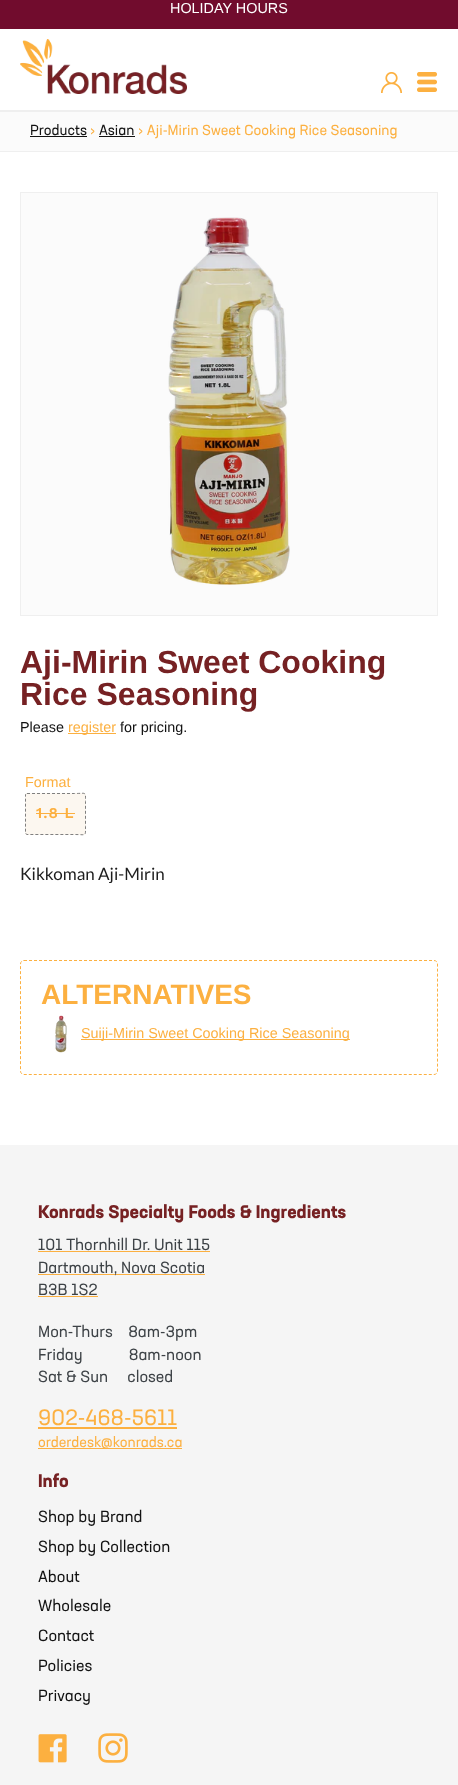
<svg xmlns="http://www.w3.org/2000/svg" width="458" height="1785">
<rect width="100%" height="100%" fill="#fff"/>
<rect width="458" height="29" fill="#710c2d"/>
<text x="170" y="13" style="font-family:Liberation Sans;font-size:14.4px;fill:#fff">HOLIDAY HOURS</text>
<rect y="110" width="458" height="2" fill="#efefef"/>
<image x="20" y="39" width="167" height="55" href="media/1.png"/>
<image x="381" y="72" width="21" height="21" href="media/2.png"/>
<image x="417" y="72" width="20" height="20" href="media/3.png"/>
<rect y="112" width="458" height="39" fill="#fbfbfb"/>
<rect y="151" width="458" height="1" fill="#efefef"/>
<text x="30" y="135" style="font-family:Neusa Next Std;font-size:14.4px;fill:#121212">Products</text>
<rect x="30" y="136" width="57" height="1" fill="#121212"/>
<text x="90" y="135" style="font-family:Neusa Next Std;font-size:14.4px;fill:#fcb040">›</text>
<text x="99" y="135" style="font-family:Neusa Next Std;font-size:14.4px;fill:#121212">Asian</text>
<rect x="99" y="136" width="36" height="1" fill="#121212"/>
<text x="138" y="135" style="font-family:Neusa Next Std;font-size:14.4px;fill:#fcb040">› Aji-Mirin Sweet Cooking Rice Seasoning</text>
<rect x="20.5" y="192.5" width="417" height="423" fill="#fbfbfb" stroke="#efefef"/>
<image x="168" y="217" width="122" height="368" href="media/4.png"/>
<text x="20" y="673" style="font-family:Liberation Sans;font-size:32px;font-weight:bold;fill:#762123">Aji-Mirin Sweet Cooking</text>
<text x="20" y="705" style="font-family:Liberation Sans;font-size:32px;font-weight:bold;fill:#762123">Rice Seasoning</text>
<text x="20" y="732" style="font-family:Liberation Sans;font-size:14.4px;fill:#121212">Please</text>
<rect x="68" y="733" width="48" height="1" fill="#fcb040"/>
<text x="68" y="732" style="font-family:Liberation Sans;font-size:14.4px;fill:#fcb040">register</text>
<text x="120" y="732" style="font-family:Liberation Sans;font-size:14.4px;fill:#121212">for pricing.</text>
<text x="25" y="787" style="font-family:Liberation Sans;font-size:14.4px;fill:#fcb040">Format</text>
<rect x="25" y="793" width="61" height="42" rx="2" fill="#fcf7f0"/>
<path d="M27 793.5h47.5c12 0 11-2.5 11 8v25c0 10.5 1 8-11 8h-47.5l-1.5-1v-39z" fill="none" stroke="#808080" stroke-dasharray="3 2"/>
<text x="36" y="818" style="font-family:Work Sans;font-size:15px;font-weight:600;letter-spacing:1px;fill:#fcb040">1.8 L</text>
<rect x="36" y="813" width="39" height="1" fill="#fcb040"/>
<text x="20" y="880" style="font-family:Lato;font-size:17px;fill:#1e1e1e">Kikkoman Aji-Mirin</text>
<path d="M24 960.5h410c2 0 3.5 1.5 3.5 3.5v107c0 2-1.5 3.5-3.5 3.5h-410c-2 0-3.5-1.5-3.5-3.5v-107c0-2 1.5-3.5 3.5-3.5z" fill="none" stroke="#fcb040" stroke-dasharray="3 2"/>
<text x="41" y="1004" style="font-family:Liberation Sans;font-size:28px;font-weight:bold;fill:#fcb040">ALTERNATIVES</text>
<image x="55" y="1015" width="12" height="38" href="media/5.png"/>
<rect x="81" y="1039" width="269" height="1" fill="#fcb040"/>
<text x="81" y="1038" style="font-family:Liberation Sans;font-size:14.4px;fill:#fcb040">Suiji-Mirin Sweet Cooking Rice Seasoning</text>
<rect y="1145" width="458" height="640" fill="#f5f5f5"/>
<text x="38" y="1218" style="font-family:Neusa Next Std;font-size:18px;font-weight:bold;fill:#762123">Konrads Specialty Foods &amp; Ingredients</text>
<text x="38" y="1250" style="font-family:Neusa Next Std;font-size:16px;fill:#3d4246">101 Thornhill Dr. Unit 115</text>
<rect x="38" y="1251" width="172" height="1" fill="#fcb040"/>
<rect x="38" y="1274" width="167" height="1" fill="#fcb040"/>
<text x="38" y="1273" style="font-family:Neusa Next Std;font-size:16px;fill:#3d4246">Dartmouth, Nova Scotia</text>
<text x="38" y="1295" style="font-family:Neusa Next Std;font-size:16px;fill:#3d4246">B3B 1S2</text>
<rect x="38" y="1296" width="60" height="1" fill="#fcb040"/>
<text x="38" y="1337" style="font-family:Neusa Next Std;font-size:16px;fill:#3d4246" xml:space="preserve">Mon-Thurs    8am-3pm</text>
<text x="38" y="1360" style="font-family:Neusa Next Std;font-size:16px;fill:#3d4246" xml:space="preserve">Friday            8am-noon</text>
<text x="38" y="1382" style="font-family:Neusa Next Std;font-size:16px;fill:#3d4246" xml:space="preserve">Sat &amp; Sun     closed</text>
<text x="38" y="1425" style="font-family:Neusa Next Std;font-size:22px;fill:#fcb040">902-468-5611</text>
<rect x="38" y="1427" width="139" height="2" fill="#fcb040"/>
<rect x="38" y="1448" width="144" height="1" fill="#fcb040"/>
<text x="38" y="1447" style="font-family:Neusa Next Std;font-size:14.4px;fill:#fcb040">orderdesk@konrads.ca</text>
<text x="38" y="1487" style="font-family:Neusa Next Std;font-size:18px;font-weight:bold;fill:#762123">Info</text>
<text x="38" y="1522" style="font-family:Neusa Next Std;font-size:16px;fill:#121212">Shop by Brand</text>
<text x="38" y="1552" style="font-family:Neusa Next Std;font-size:16px;fill:#121212">Shop by Collection</text>
<text x="38" y="1582" style="font-family:Neusa Next Std;font-size:16px;fill:#121212">About</text>
<text x="38" y="1611" style="font-family:Neusa Next Std;font-size:16px;fill:#121212">Wholesale</text>
<text x="38" y="1641" style="font-family:Neusa Next Std;font-size:16px;fill:#121212">Contact</text>
<text x="38" y="1671" style="font-family:Neusa Next Std;font-size:16px;fill:#121212">Policies</text>
<text x="38" y="1701" style="font-family:Neusa Next Std;font-size:16px;fill:#121212">Privacy</text>
<image x="38" y="1734" width="29" height="29" href="media/6.png"/>
<image x="98" y="1733" width="30" height="30" href="media/7.png"/>
</svg>
